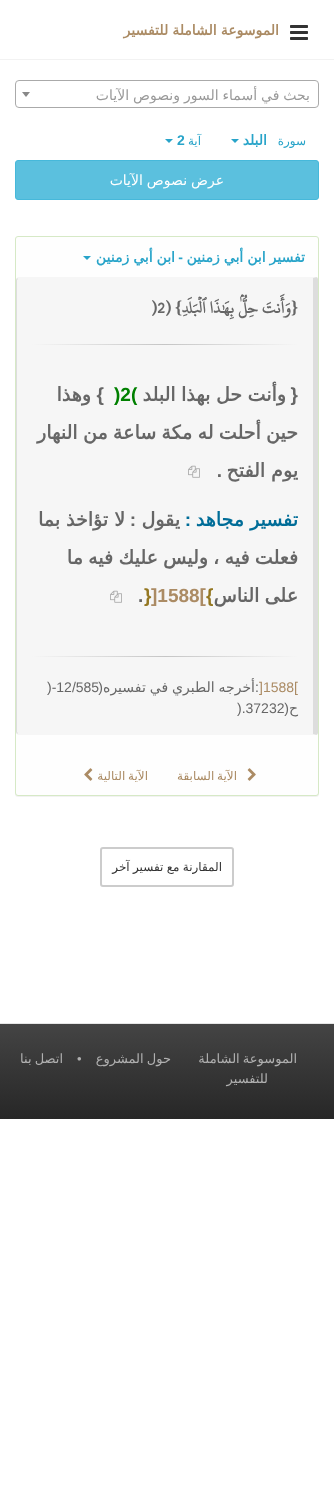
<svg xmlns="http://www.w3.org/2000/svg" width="334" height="1512">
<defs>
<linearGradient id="g1" gradientUnits="userSpaceOnUse" x1="32" y1="345" x2="298" y2="345"><stop offset="0" stop-color="#f6f6f6"/><stop offset="0.5" stop-color="#c5c5c5"/><stop offset="1" stop-color="#f6f6f6"/></linearGradient>
<linearGradient id="g2" gradientUnits="userSpaceOnUse" x1="32" y1="657" x2="298" y2="657"><stop offset="0" stop-color="#f6f6f6"/><stop offset="0.5" stop-color="#c5c5c5"/><stop offset="1" stop-color="#f6f6f6"/></linearGradient>
<linearGradient id="g3" gradientUnits="userSpaceOnUse" x1="167" y1="1024" x2="167" y2="1119"><stop offset="0" stop-color="#444"/><stop offset="1" stop-color="#272727"/></linearGradient>
</defs>
<rect width="100%" height="100%" fill="#fff"/>
<rect y="59" width="334" height="1" fill="#f2f2f2"/>
<image x="290" y="25" width="18" height="15" href="media/1.png"/>
<text x="279" y="35" word-spacing="-0.5" style="font-family:DejaVu Sans;font-size:14px;font-weight:bold;direction:rtl;fill:#ab8b64">الموسوعة الشاملة للتفسير</text>
<rect y="1023" width="334" height="1" fill="#e6e6e6"/>
<rect x="15.5" y="80.5" width="303" height="27" rx="3.5" fill="none" stroke="#aaa"/>
<text x="310" y="100" word-spacing="-0.5" style="font-family:DejaVu Sans;font-size:14px;direction:rtl;fill:#999">بحث في أسماء السور ونصوص الآيات</text>
<path d="M22 92h8l-4 5z" fill="#888"/>
<text x="306" y="145" style="font-family:DejaVu Sans;font-size:12px;direction:rtl;fill:#28a4c9">سورة</text>
<text x="267" y="145" style="font-family:DejaVu Sans;font-size:14px;font-weight:bold;direction:rtl;fill:#28a4c9">البلد</text>
<path d="M231 139h8l-4 4z" fill="#28a4c9"/>
<text x="201" y="145" style="font-family:DejaVu Sans;font-size:12px;direction:rtl;fill:#28a4c9">آية</text>
<text x="177" y="145" style="font-family:Liberation Sans;font-size:14px;font-weight:bold;fill:#28a4c9">2</text>
<path d="M165 139h8l-4 4z" fill="#28a4c9"/>
<rect x="15.5" y="160.5" width="303" height="39" rx="2.5" fill="#5bc0de" stroke="#46b8da"/>
<text x="224" y="185" word-spacing="-0.5" style="font-family:DejaVu Sans;font-size:14px;direction:rtl;fill:#fff">عرض نصوص الآيات</text>
<rect x="15" y="237" width="304" height="560" rx="3" fill="#0000000d" filter="blur(0.5px)"/>
<rect x="15.5" y="236.5" width="303" height="559" rx="2.5" fill="#fefefe" stroke="#d6e9c6"/>
<text x="305" y="262" word-spacing="-0.5" style="font-family:DejaVu Sans;font-size:14px;font-weight:bold;direction:rtl;fill:#28a4c9">تفسير ابن أبي زمنين</text>
<text x="183" y="262" style="font-family:Liberation Sans;font-size:14px;font-weight:bold;direction:rtl;fill:#28a4c9">-</text>
<text x="175" y="262" word-spacing="-0.5" style="font-family:DejaVu Sans;font-size:14px;font-weight:bold;direction:rtl;fill:#28a4c9">ابن أبي زمنين</text>
<path d="M83 256h8l-4 4z" fill="#28a4c9"/>
<rect x="16" y="277" width="302" height="458" rx="3" fill="#f6f6f6"/>
<path d="M318 732v-452c0-1 0-2-1-3l-4 1v456l4 1c1-1 1-2 1-3z" fill="#0000001a"/>
<path d="M16 280v452l1 2l1-1l-1-1v-452l1-1l-1-1z" fill="#ddd"/>
<text x="298" y="313" style="font-family:Liberation Serif;font-size:18px;font-weight:bold;direction:rtl;fill:#666">{</text>
<text x="291" y="313" style="font-family:'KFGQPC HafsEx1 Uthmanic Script';font-size:18px;font-weight:bold;direction:rtl;fill:#666">وَأَنتَ حِلُّۢ بِهَٰذَا ٱلۡبَلَدِ</text>
<text x="182" y="313" style="font-family:Liberation Serif;font-size:18px;font-weight:bold;direction:rtl;fill:#666">}</text>
<text x="171" y="313" style="font-family:'KFGQPC HafsEx1 Uthmanic Script';font-size:18px;font-weight:bold;direction:rtl;fill:#666">(</text>
<text x="151" y="313" style="font-family:'KFGQPC HafsEx1 Uthmanic Script';font-size:18px;font-weight:bold;fill:#666">)2</text>
<rect x="32" y="344" width="266" height="1" fill="url(#g1)"/>
<text x="298" y="401" style="font-family:Liberation Sans;font-size:19px;font-weight:bold;direction:rtl;fill:#666">{</text>
<text x="286" y="401" word-spacing="-0.5" style="font-family:DejaVu Sans;font-size:19px;font-weight:bold;direction:rtl;fill:#666">وأنت حل بهذا البلد</text>
<text x="114" y="401" style="font-family:Liberation Sans;font-size:19px;font-weight:bold;fill:#008000">)2(</text>
<text x="104" y="401" style="font-family:Liberation Sans;font-size:19px;font-weight:bold;direction:rtl;fill:#666">}</text>
<text x="91" y="401" style="font-family:DejaVu Sans;font-size:19px;font-weight:bold;direction:rtl;fill:#666">وهذا</text>
<text x="298" y="439" word-spacing="-0.75" style="font-family:DejaVu Sans;font-size:19px;font-weight:bold;direction:rtl;fill:#666">حين أحلت له مكة ساعة من النهار</text>
<text x="298" y="477" style="font-family:DejaVu Sans;font-size:19px;font-weight:bold;direction:rtl;fill:#666">يوم الفتح</text>
<text x="222" y="477" style="font-family:Liberation Sans;font-size:19px;font-weight:bold;direction:rtl;fill:#666">.</text>
<image x="188" y="465" width="12" height="13" href="media/2.png"/>
<text x="298" y="526" style="font-family:DejaVu Sans;font-size:19px;font-weight:bold;direction:rtl;fill:#006d98">تفسير مجاهد</text>
<text x="191" y="526" style="font-family:Liberation Sans;font-size:19px;font-weight:bold;direction:rtl;fill:#006d98">:</text>
<text x="180" y="526" style="font-family:DejaVu Sans;font-size:19px;font-weight:bold;direction:rtl;fill:#666">يقول</text>
<text x="136" y="526" style="font-family:Liberation Sans;font-size:19px;font-weight:bold;direction:rtl;fill:#666">:</text>
<text x="125" y="526" style="font-family:DejaVu Sans;font-size:19px;font-weight:bold;direction:rtl;fill:#666">لا تؤاخذ بما</text>
<text x="298" y="564" word-spacing="-0.75" style="font-family:DejaVu Sans;font-size:19px;font-weight:bold;direction:rtl;fill:#666">فعلت فيه ،</text>
<text x="208" y="564" word-spacing="-0.75" style="font-family:DejaVu Sans;font-size:19px;font-weight:bold;direction:rtl;fill:#666">وليس عليك فيه ما</text>
<text x="298" y="602" word-spacing="-0.75" style="font-family:DejaVu Sans;font-size:19px;font-weight:bold;direction:rtl;fill:#666">على الناس</text>
<text x="206" y="602" style="font-family:Liberation Sans;font-size:19px;font-weight:bold;fill:#947721">{</text>
<text x="151" y="602" style="font-family:Liberation Sans;font-size:19px;font-weight:bold;fill:#ab8b64">]1588[</text>
<text x="144" y="602" style="font-family:Liberation Sans;font-size:19px;font-weight:bold;fill:#947721">}</text>
<text x="138" y="602" style="font-family:Liberation Sans;font-size:19px;font-weight:bold;fill:#666">.</text>
<image x="110" y="590" width="12" height="13" href="media/2.png"/>
<rect x="32" y="656" width="266" height="1" fill="url(#g2)"/>
<text x="259" y="692" style="font-family:Liberation Sans;font-size:14px;fill:#ab8b64">]1588[</text>
<text x="255" y="692" word-spacing="-0.5" style="font-family:DejaVu Sans;font-size:14px;direction:rtl;fill:#666">أخرجه الطبري في تفسيره</text>
<text x="103" y="692" style="font-family:Liberation Sans;font-size:14px;direction:rtl;fill:#666">(</text>
<text x="47" y="692" style="font-family:Liberation Sans;font-size:14px;fill:#666">)-12/585</text>
<text x="259" y="692" style="font-family:Liberation Sans;font-size:14px;direction:rtl;fill:#666">:</text>
<text x="298" y="713" style="font-family:DejaVu Sans;font-size:14px;direction:rtl;fill:#666">ح</text>
<text x="289" y="713" style="font-family:Liberation Sans;font-size:14px;direction:rtl;fill:#666">(</text>
<text x="237" y="713" style="font-family:Liberation Sans;font-size:14px;fill:#666">).37232</text>
<image x="247" y="768" width="9" height="13" href="media/3.png"/>
<text x="237" y="780" word-spacing="-1" style="font-family:DejaVu Sans;font-size:12px;direction:rtl;fill:#ab8b64">الآية السابقة</text>
<text x="148" y="780" word-spacing="-1" style="font-family:DejaVu Sans;font-size:12px;direction:rtl;fill:#ab8b64">الآية التالية</text>
<image x="84" y="768" width="9" height="13" href="media/4.png"/>
<rect x="101" y="848" width="132" height="38" rx="2" fill="none" stroke="#ccc" stroke-width="2"/>
<text x="222" y="871" word-spacing="-0.5" style="font-family:DejaVu Sans;font-size:12px;direction:rtl;fill:#333">المقارنة مع تفسير آخر</text>
<rect y="1024" width="334" height="95" fill="url(#g3)"/>
<text x="297" y="1063" word-spacing="-1" style="font-family:DejaVu Sans;font-size:13px;direction:rtl;fill:#b0b0b0">الموسوعة الشاملة</text>
<text x="171" y="1063" word-spacing="-1" style="font-family:DejaVu Sans;font-size:13px;direction:rtl;fill:#b0b0b0">حول المشروع</text>
<text x="77" y="1063" style="font-family:Liberation Sans;font-size:13px;fill:#b0b0b0">•</text>
<text x="63" y="1063" word-spacing="-1" style="font-family:DejaVu Sans;font-size:13px;direction:rtl;fill:#b0b0b0">اتصل بنا</text>
<text x="268" y="1083" style="font-family:DejaVu Sans;font-size:13px;direction:rtl;fill:#b0b0b0">للتفسير</text>
</svg>
